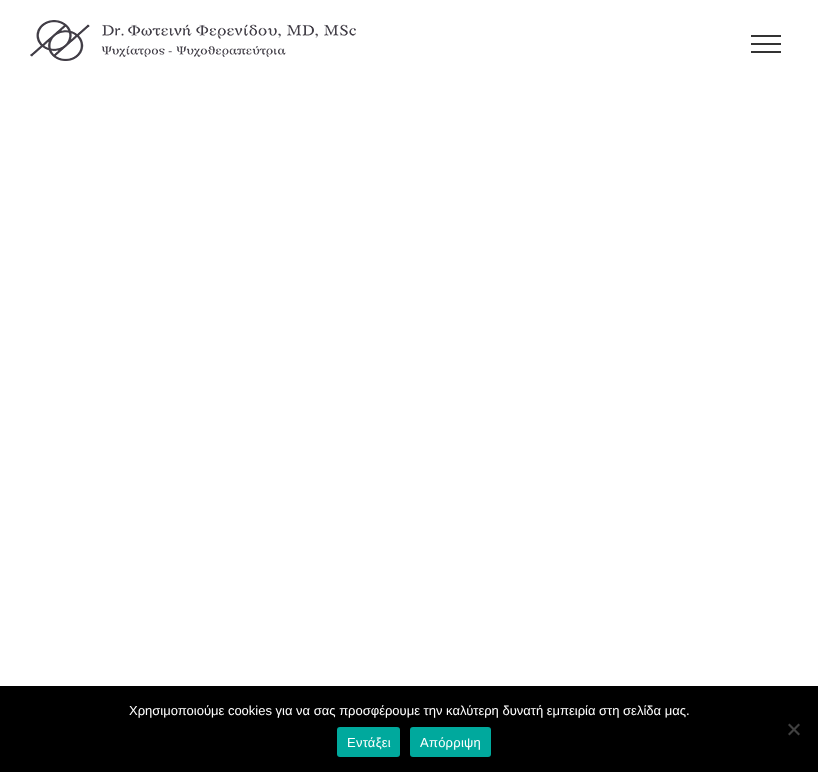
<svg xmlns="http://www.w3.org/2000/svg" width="818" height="772">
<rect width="100%" height="100%" fill="#fff"/>
<image x="30" y="20" width="326" height="41" href="media/1.png"/>
<rect x="751" y="35" width="30" height="2" fill="#333"/>
<rect x="751" y="43" width="30" height="2" fill="#333"/>
<rect x="751" y="51" width="30" height="2" fill="#333"/>
<rect y="686" width="818" height="86" fill="#000"/>
<text x="129" y="715" style="font-family:Liberation Sans;font-size:13px;fill:#fff">Χρησιμοποιούμε cookies για να σας προσφέρουμε την καλύτερη δυνατή εμπειρία στη σελίδα μας.</text>
<path d="M798.5 723.5l1.5 1.5l-10.5 10.5l-1.5-1.5z" fill="#404040"/>
<path d="M788 725l1.5-1.5l10.5 10.5l-1.5 1.5z" fill="#404040"/>
<rect x="337" y="727" width="63" height="30" rx="3" fill="#00a99d"/>
<text x="347" y="747" style="font-family:Liberation Sans;font-size:13px;letter-spacing:0.25px;fill:#fff">Εντάξει</text>
<rect x="410" y="727" width="81" height="30" rx="3" fill="#00a99d"/>
<text x="420" y="747" style="font-family:Liberation Sans;font-size:13px;letter-spacing:0.25px;fill:#fff">Απόρριψη</text>
</svg>
